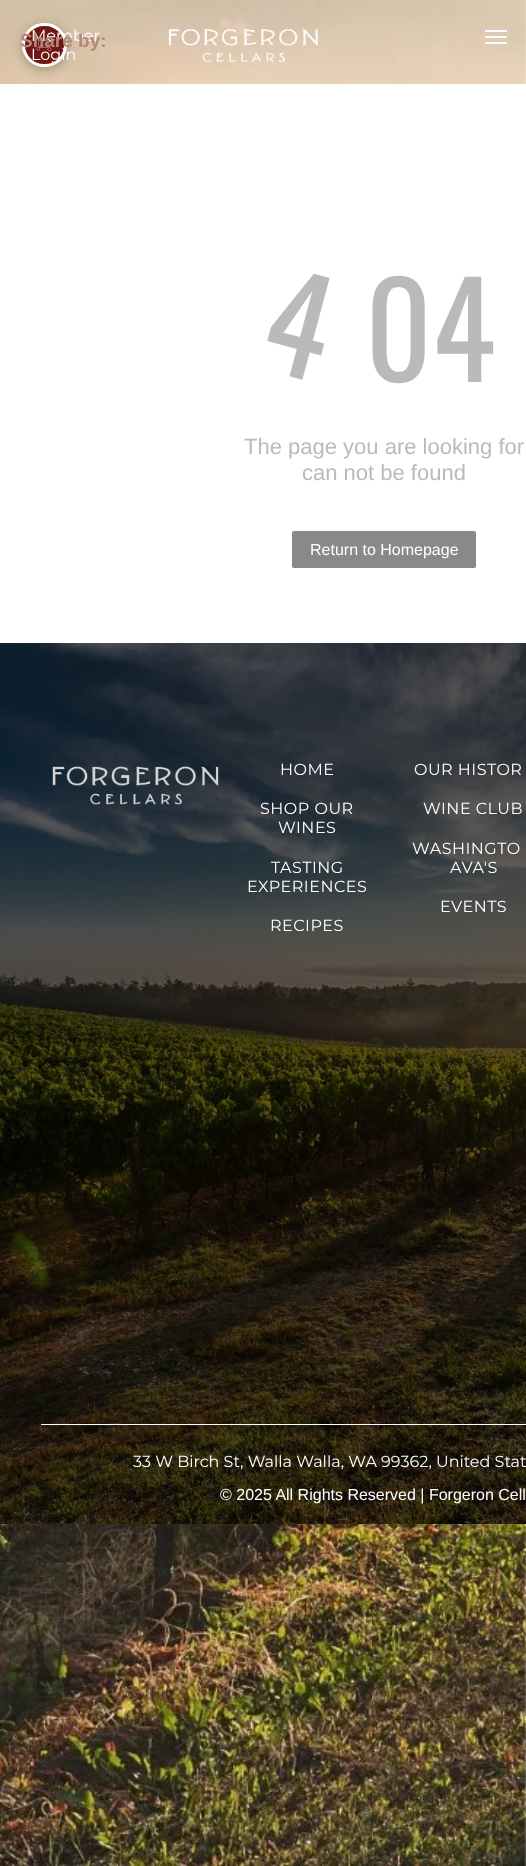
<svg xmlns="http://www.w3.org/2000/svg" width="526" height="1866">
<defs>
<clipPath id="clip1"><path d="M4 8h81v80h-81zm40 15h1c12 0 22 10 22 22c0 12-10 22-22 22h-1c-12 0-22-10-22-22c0-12 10-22 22-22z" clip-rule="evenodd"/></clipPath>
</defs>
<rect width="100%" height="100%" fill="#fff"/>
<image x="0" y="0" width="526" height="1866" href="media/1.png"/>
<rect y="84" width="526" height="559" fill="#fff"/>
<g clip-path="url(#clip1)">
<rect x="22" y="26" width="45" height="44" rx="22" fill="#00000040" filter="blur(5.5px)"/>
</g>
<rect x="23.5" y="24.5" width="42" height="41" rx="20.5" fill="#640404e6" stroke="#fff" stroke-width="3"/>
<image x="36" y="40" width="18" height="11" href="media/2.png"/>
<text x="31" y="41" style="font-family:Montserrat;font-size:16px;fill:#fff">Member</text>
<text x="31" y="60" style="font-family:Montserrat;font-size:16px;fill:#fff">Login</text>
<image x="168" y="29" width="150" height="33" href="media/3.png"/>
<rect x="485" y="30" width="22" height="2" fill="#fff"/>
<rect x="485" y="36" width="22" height="2" fill="#fff"/>
<rect x="485" y="42" width="22" height="2" fill="#fff"/>
<text x="255" y="367" transform="rotate(15 255 367)" style="font-family:Oswald;font-size:130px;fill:#bababa">4</text>
<text x="365" y="382" style="font-family:Oswald;font-size:130px;fill:#bababa">04</text>
<text x="244" y="454" style="font-family:Liberation Sans;font-size:22px;fill:#bababa">The page you are looking for</text>
<text x="302" y="480" style="font-family:Liberation Sans;font-size:22px;fill:#bababa">can not be found</text>
<rect x="292" y="531" width="184" height="37" rx="2" fill="#898989"/>
<text x="310" y="555" style="font-family:Liberation Sans;font-size:16px;fill:#fff">Return to Homepage</text>
<image x="0" y="643" width="526" height="881" href="media/4.png"/>
<image x="52" y="766" width="167" height="39" href="media/5.png"/>
<text x="280" y="775" style="font-family:Montserrat;font-size:16px;letter-spacing:0.5px;fill:#fff">HOME</text>
<text x="260" y="814" style="font-family:Montserrat;font-size:16px;letter-spacing:0.5px;fill:#fff">SHOP OUR</text>
<text x="278" y="833" style="font-family:Montserrat;font-size:16px;letter-spacing:0.5px;fill:#fff">WINES</text>
<text x="271" y="873" style="font-family:Montserrat;font-size:16px;letter-spacing:0.5px;fill:#fff">TASTING</text>
<text x="247" y="892" style="font-family:Montserrat;font-size:16px;letter-spacing:0.5px;fill:#fff">EXPERIENCES</text>
<text x="270" y="931" style="font-family:Montserrat;font-size:16px;letter-spacing:0.5px;fill:#fff">RECIPES</text>
<text x="414" y="775" style="font-family:Montserrat;font-size:16px;letter-spacing:0.5px;fill:#fff">OUR HISTOR</text>
<text x="423" y="814" style="font-family:Montserrat;font-size:16px;letter-spacing:0.5px;fill:#fff">WINE CLUB</text>
<text x="412" y="854" style="font-family:Montserrat;font-size:16px;letter-spacing:0.5px;fill:#fff">WASHINGTO</text>
<text x="450" y="873" style="font-family:Montserrat;font-size:16px;letter-spacing:0.5px;fill:#fff">AVA'S</text>
<text x="440" y="912" style="font-family:Montserrat;font-size:16px;letter-spacing:0.5px;fill:#fff">EVENTS</text>
<rect x="41" y="1424" width="485" height="1" fill="#fff"/>
<text x="133" y="1467" style="font-family:Montserrat;font-size:16px;fill:#fff">33 W Birch St, Walla Walla, WA 99362, United Stat</text>
<text x="220" y="1500" style="font-family:Liberation Sans;font-size:16px;fill:#fff">© 2025 All Rights Reserved | Forgeron Cell</text>
<text x="20" y="47" style="font-family:Liberation Sans;font-size:19px;font-weight:bold;fill:#b4887d">Share by:</text>
</svg>
